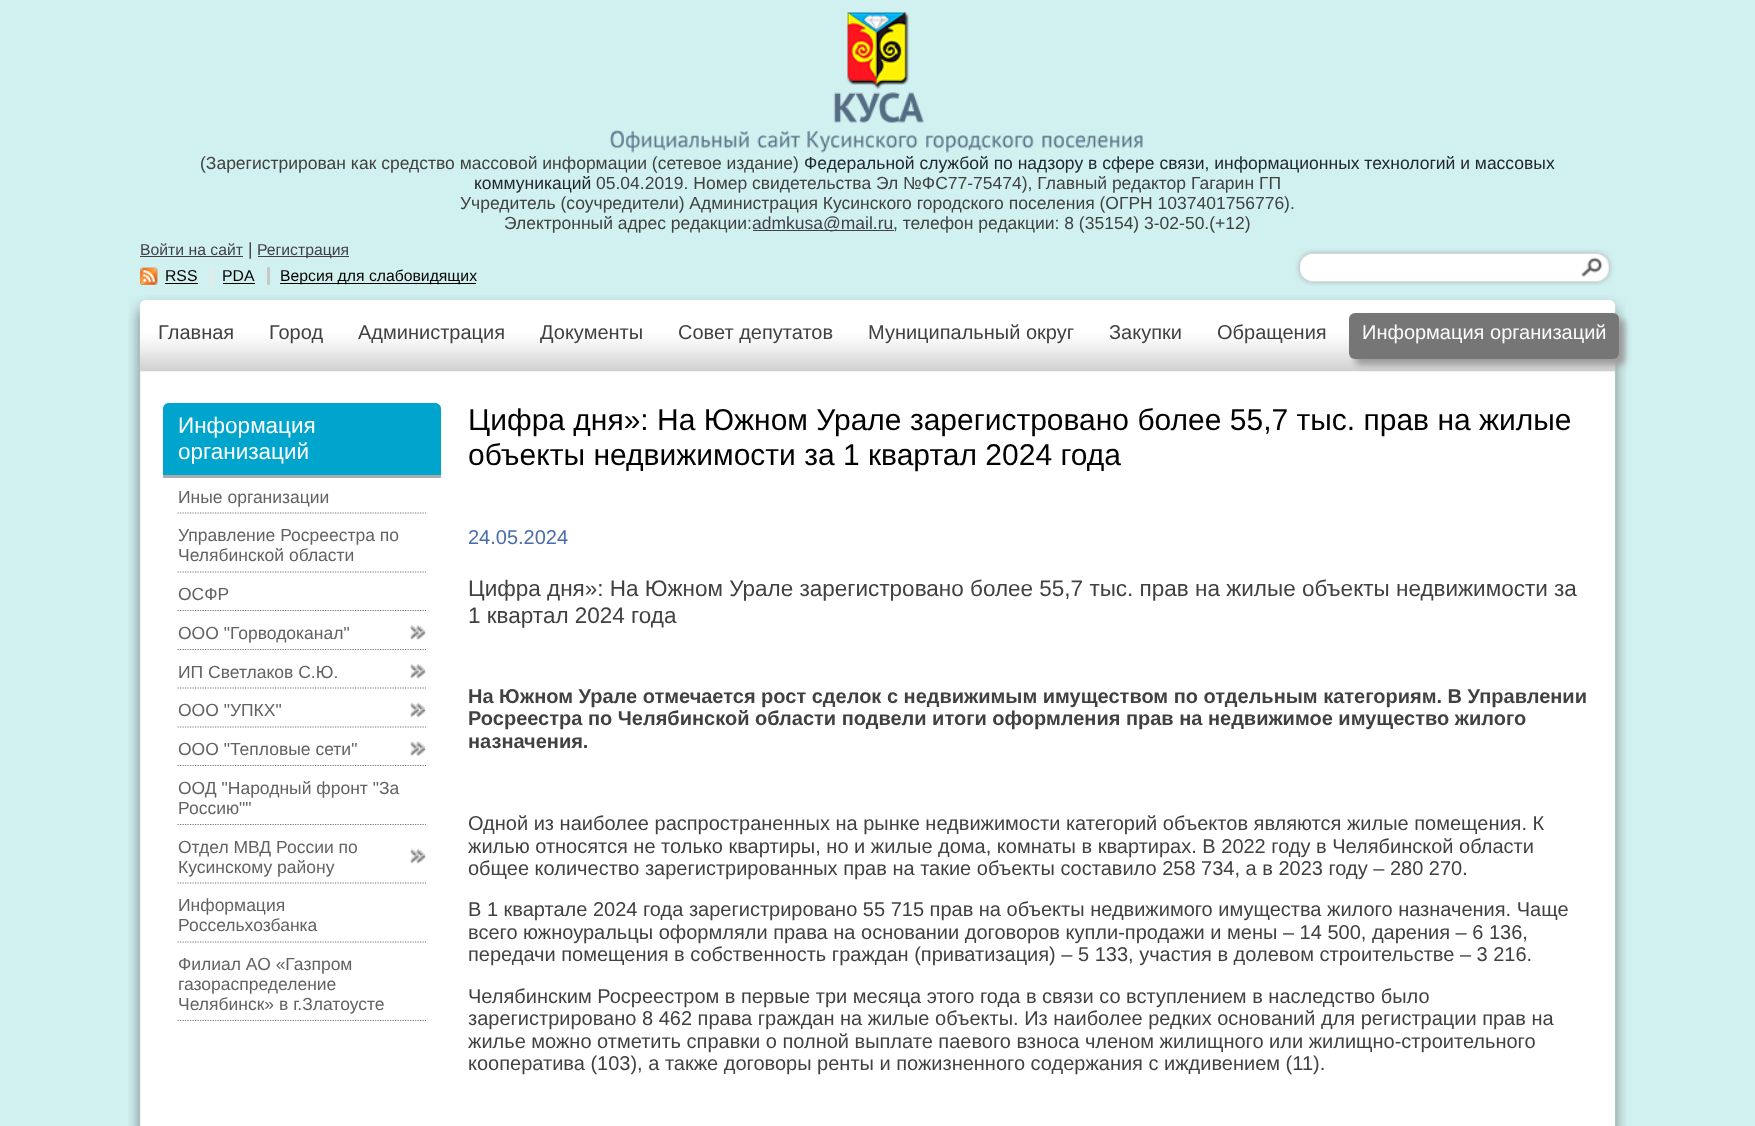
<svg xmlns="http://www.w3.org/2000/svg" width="1755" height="1126">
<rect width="100%" height="100%" fill="#d1f1f1"/>
<image x="847" y="12" width="62" height="78" href="media/1.png"/>
<image x="833" y="92" width="91" height="31" href="media/2.png"/>
<image x="610" y="130" width="139" height="23" href="media/3.png"/>
<image x="757" y="131" width="44" height="17" href="media/4.png"/>
<image x="807" y="131" width="111" height="22" href="media/5.png"/>
<image x="926" y="135" width="108" height="18" href="media/6.png"/>
<image x="1042" y="135" width="101" height="13" href="media/7.png"/>
<text x="200" y="169" style="font-family:Liberation Sans;font-size:17.5px;fill:#414141">(Зарегистрирован как средство массовой информации (сетевое издание)</text>
<text x="804" y="169" style="font-family:Liberation Sans;font-size:17.5px;fill:#22272f">Федеральной службой по надзору в сфере связи, информационных технологий и массовых</text>
<text x="474" y="189" style="font-family:Liberation Sans;font-size:17.5px;fill:#22272f">коммуникаций</text>
<text x="596" y="189" style="font-family:Liberation Sans;font-size:17.5px;fill:#414141">05.04.2019. Номер свидетельства Эл №ФС77-75474), Главный редактор Гагарин ГП</text>
<text x="460" y="209" style="font-family:Liberation Sans;font-size:17.5px;fill:#414141">Учредитель (соучредители) Администрация Кусинского городского поселения (ОГРН 1037401756776).</text>
<text x="504" y="229" style="font-family:Liberation Sans;font-size:17.5px;fill:#414141">Электронный адрес редакции:</text>
<rect x="753" y="230" width="141" height="1" fill="#433f4a"/>
<text x="752" y="229" style="font-family:Liberation Sans;font-size:17.5px;fill:#433f4a">admkusa@mail.ru</text>
<text x="893" y="229" style="font-family:Liberation Sans;font-size:17.5px;fill:#414141">, телефон редакции: 8 (35154) 3-02-50.(+12)</text>
<text x="140" y="255" style="font-family:Liberation Sans;font-size:15.75px;fill:#433f4a">Войти на сайт</text>
<rect x="140" y="256" width="103" height="1" fill="#433f4a"/>
<text x="248" y="255" style="font-family:Liberation Sans;font-size:17.5px;fill:#414141">|</text>
<rect x="258" y="256" width="91" height="1" fill="#433f4a"/>
<text x="257" y="255" style="font-family:Liberation Sans;font-size:15.75px;fill:#433f4a">Регистрация</text>
<image x="1295" y="249" width="319" height="37" href="media/8.png"/>
<image x="140" y="267" width="18" height="18" href="media/9.png"/>
<text x="165" y="281" style="font-family:Liberation Sans;font-size:15.75px;fill:#000">RSS</text>
<rect x="165" y="283" width="33" height="1" fill="#000"/>
<rect x="210" y="267" width="3" height="18" fill="#e8e8e8"/>
<text x="222" y="281" style="font-family:Liberation Sans;font-size:15.75px;fill:#000">PDA</text>
<rect x="223" y="283" width="32" height="1" fill="#000"/>
<rect x="267" y="267" width="3" height="18" fill="#c9c9c9"/>
<rect x="280" y="283" width="196" height="1" fill="#000"/>
<text x="280" y="281" style="font-family:Liberation Sans;font-size:15.75px;fill:#000">Версия для слабовидящих</text>
<image x="128" y="318" width="1499" height="808" href="media/10.png"/>
<image x="129" y="295" width="1497" height="24" href="media/11.png"/>
<image x="140" y="300" width="1475" height="72" href="media/12.png"/>
<text x="158" y="339" style="font-family:Liberation Sans;font-size:20px;fill:#414141">Главная</text>
<text x="269" y="339" style="font-family:Liberation Sans;font-size:20px;fill:#414141">Город</text>
<text x="358" y="339" style="font-family:Liberation Sans;font-size:20px;fill:#414141">Администрация</text>
<text x="540" y="339" style="font-family:Liberation Sans;font-size:20px;fill:#414141">Документы</text>
<text x="678" y="339" style="font-family:Liberation Sans;font-size:20px;fill:#414141">Совет депутатов</text>
<text x="868" y="339" style="font-family:Liberation Sans;font-size:20px;fill:#414141">Муниципальный округ</text>
<text x="1109" y="339" style="font-family:Liberation Sans;font-size:20px;fill:#414141">Закупки</text>
<text x="1217" y="339" style="font-family:Liberation Sans;font-size:20px;fill:#414141">Обращения</text>
<rect x="1355" y="319" width="270" height="46" rx="6" fill="#9c9c9c" filter="blur(3px)"/>
<rect x="1349" y="313" width="270" height="46" rx="6" fill="#767676"/>
<text x="1362" y="339" style="font-family:Liberation Sans;font-size:20px;fill:#fcfcfc">Информация организаций</text>
<path d="M169 403h266c3.5 0 6 2.5 6 6v69h-278v-69c0-3.5 2.5-6 6-6z" fill="#00a5ce"/>
<rect x="163" y="475" width="278" height="3" fill="#ababab"/>
<text x="178" y="433" style="font-family:Liberation Sans;font-size:22.5px;fill:#fcfcfc">Информация</text>
<text x="178" y="459" style="font-family:Liberation Sans;font-size:22.5px;fill:#fcfcfc">организаций</text>
<path d="M177.5 513h248.5" fill="none" stroke="#797979" stroke-width="1.2" stroke-dasharray="1.25 1.25"/>
<text x="178" y="503" style="font-family:Liberation Sans;font-size:17.5px;fill:#626262">Иные организации</text>
<path d="M177.5 572h248.5" fill="none" stroke="#797979" stroke-width="1.2" stroke-dasharray="1.25 1.25"/>
<text x="178" y="541" style="font-family:Liberation Sans;font-size:17.5px;fill:#626262">Управление Росреестра по</text>
<text x="178" y="561" style="font-family:Liberation Sans;font-size:17.5px;fill:#626262">Челябинской области</text>
<path d="M177.5 610.5h248.5" fill="none" stroke="#797979" stroke-width="1.2" stroke-dasharray="1.25 1.25"/>
<text x="178" y="600" style="font-family:Liberation Sans;font-size:17.5px;fill:#626262">ОСФР</text>
<path d="M177.5 649.5h248.5" fill="none" stroke="#797979" stroke-width="1.2" stroke-dasharray="1.25 1.25"/>
<image x="410" y="625" width="16" height="15" href="media/13.png"/>
<text x="178" y="639" style="font-family:Liberation Sans;font-size:17.5px;fill:#626262">ООО "Горводоканал"</text>
<path d="M177.5 688h248.5" fill="none" stroke="#797979" stroke-width="1.2" stroke-dasharray="1.25 1.25"/>
<image x="410" y="663" width="16" height="16" href="media/14.png"/>
<text x="178" y="678" style="font-family:Liberation Sans;font-size:17.5px;fill:#626262">ИП Светлаков С.Ю.</text>
<path d="M177.5 727h248.5" fill="none" stroke="#797979" stroke-width="1.2" stroke-dasharray="1.25 1.25"/>
<image x="410" y="702" width="16" height="16" href="media/15.png"/>
<text x="178" y="716" style="font-family:Liberation Sans;font-size:17.5px;fill:#626262">ООО "УПКХ"</text>
<path d="M177.5 765.5h248.5" fill="none" stroke="#797979" stroke-width="1.2" stroke-dasharray="1.25 1.25"/>
<image x="410" y="741" width="16" height="16" href="media/16.png"/>
<text x="178" y="755" style="font-family:Liberation Sans;font-size:17.5px;fill:#626262">ООО "Тепловые сети"</text>
<path d="M177.5 824.5h248.5" fill="none" stroke="#797979" stroke-width="1.2" stroke-dasharray="1.25 1.25"/>
<text x="178" y="794" style="font-family:Liberation Sans;font-size:17.5px;fill:#626262">ООД "Народный фронт "За</text>
<text x="178" y="814" style="font-family:Liberation Sans;font-size:17.5px;fill:#626262">Россию""</text>
<path d="M177.5 883h248.5" fill="none" stroke="#797979" stroke-width="1.2" stroke-dasharray="1.25 1.25"/>
<image x="410" y="848" width="16" height="16" href="media/14.png"/>
<text x="178" y="853" style="font-family:Liberation Sans;font-size:17.5px;fill:#626262">Отдел МВД России по</text>
<text x="178" y="873" style="font-family:Liberation Sans;font-size:17.5px;fill:#626262">Кусинскому району</text>
<path d="M177.5 942h248.5" fill="none" stroke="#797979" stroke-width="1.2" stroke-dasharray="1.25 1.25"/>
<text x="178" y="911" style="font-family:Liberation Sans;font-size:17.5px;fill:#626262">Информация</text>
<text x="178" y="931" style="font-family:Liberation Sans;font-size:17.5px;fill:#626262">Россельхозбанка</text>
<path d="M177.5 1020.5h248.5" fill="none" stroke="#797979" stroke-width="1.2" stroke-dasharray="1.25 1.25"/>
<text x="178" y="970" style="font-family:Liberation Sans;font-size:17.5px;fill:#626262">Филиал АО «Газпром</text>
<text x="178" y="990" style="font-family:Liberation Sans;font-size:17.5px;fill:#626262">газораспределение</text>
<text x="178" y="1010" style="font-family:Liberation Sans;font-size:17.5px;fill:#626262">Челябинск» в г.Златоусте</text>
<text x="468" y="430" style="font-family:Liberation Sans;font-size:30px;fill:#000">Цифра дня»: На Южном Урале зарегистровано более 55,7 тыс. прав на жилые</text>
<text x="468" y="465" style="font-family:Liberation Sans;font-size:30px;fill:#000">объекты недвижимости за 1 квартал 2024 года</text>
<text x="468" y="544" style="font-family:Liberation Sans;font-size:20px;fill:#486daa">24.05.2024</text>
<text x="468" y="596" style="font-family:Liberation Sans;font-size:22.5px;fill:#414141">Цифра дня»: На Южном Урале зарегистровано более 55,7 тыс. прав на жилые объекты недвижимости за</text>
<text x="468" y="623" style="font-family:Liberation Sans;font-size:22.5px;fill:#414141">1 квартал 2024 года</text>
<text x="468" y="703" style="font-family:Liberation Sans;font-size:20px;font-weight:bold;fill:#414141">На Южном Урале отмечается рост сделок с недвижимым имуществом по отдельным категориям. В Управлении</text>
<text x="468" y="725" style="font-family:Liberation Sans;font-size:20px;font-weight:bold;fill:#414141">Росреестра по Челябинской области подвели итоги оформления прав на недвижимое имущество жилого</text>
<text x="468" y="748" style="font-family:Liberation Sans;font-size:20px;font-weight:bold;fill:#414141">назначения.</text>
<text x="468" y="830" style="font-family:Liberation Sans;font-size:20px;fill:#414141">Одной из наиболее распространенных на рынке недвижимости категорий объектов являются жилые помещения. К</text>
<text x="468" y="853" style="font-family:Liberation Sans;font-size:20px;fill:#414141">жилью относятся не только квартиры, но и жилые дома, комнаты в квартирах. В 2022 году в Челябинской области</text>
<text x="468" y="875" style="font-family:Liberation Sans;font-size:20px;fill:#414141">общее количество зарегистрированных прав на такие объекты составило 258 734, а в 2023 году – 280 270.</text>
<text x="468" y="916" style="font-family:Liberation Sans;font-size:20px;fill:#414141">В 1 квартале 2024 года зарегистрировано 55 715 прав на объекты недвижимого имущества жилого назначения. Чаще</text>
<text x="468" y="939" style="font-family:Liberation Sans;font-size:20px;fill:#414141">всего южноуральцы оформляли права на основании договоров купли-продажи и мены – 14 500, дарения – 6 136,</text>
<text x="468" y="961" style="font-family:Liberation Sans;font-size:20px;fill:#414141">передачи помещения в собственность граждан (приватизация) – 5 133, участия в долевом строительстве – 3 216.</text>
<text x="468" y="1003" style="font-family:Liberation Sans;font-size:20px;fill:#414141">Челябинским Росреестром в первые три месяца этого года в связи со вступлением в наследство было</text>
<text x="468" y="1025" style="font-family:Liberation Sans;font-size:20px;fill:#414141">зарегистрировано 8 462 права граждан на жилые объекты. Из наиболее редких оснований для регистрации прав на</text>
<text x="468" y="1048" style="font-family:Liberation Sans;font-size:20px;fill:#414141">жилье можно отметить справки о полной выплате паевого взноса членом жилищного или жилищно-строительного</text>
<text x="468" y="1070" style="font-family:Liberation Sans;font-size:20px;fill:#414141">кооператива (103), а также договоры ренты и пожизненного содержания с иждивением (11).</text>
</svg>
